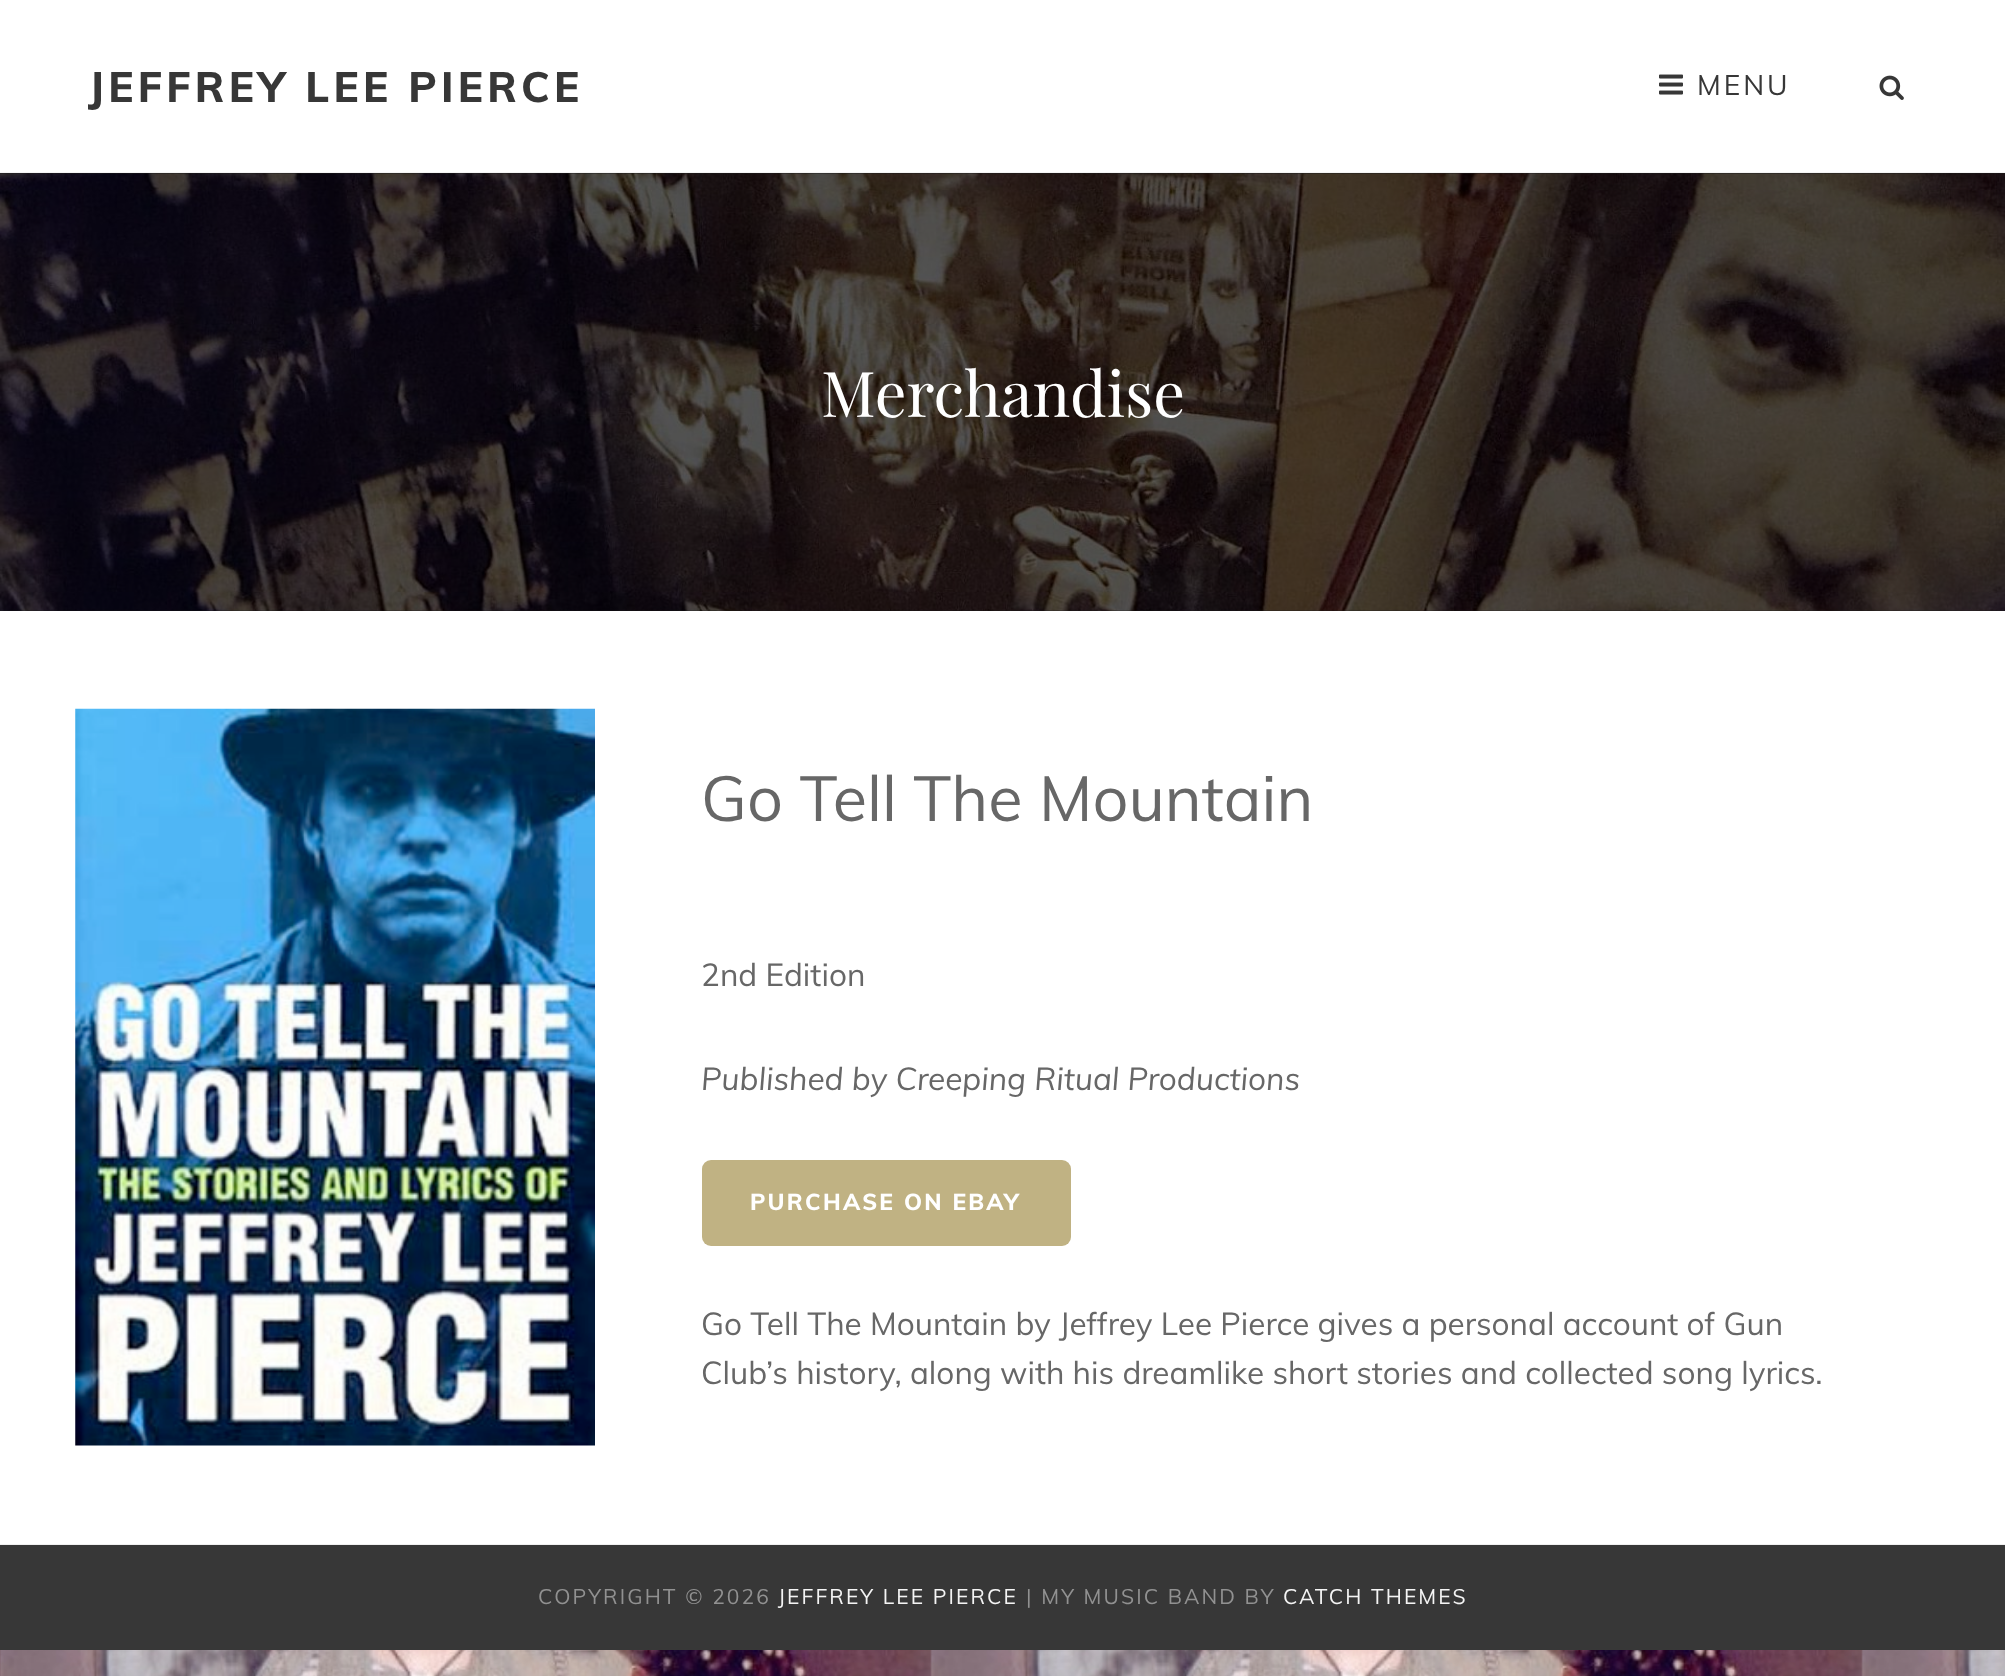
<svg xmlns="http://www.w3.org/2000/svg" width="2005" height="1676">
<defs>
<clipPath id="clip1"><rect x="88" y="60" width="495" height="52"/></clipPath>
</defs>
<rect width="100%" height="100%" fill="#fff"/>
<image x="0" y="1650" width="2005" height="26" href="media/1.png"/>
<rect y="172" width="2005" height="1" fill="#f4f4f4"/>
<g clip-path="url(#clip1)">
<text x="88" y="102" style="font-family:Muli;font-size:42px;font-weight:800;letter-spacing:4.25px;fill:#373737">JEFFREY LEE PIERCE</text>
</g>
<image x="1659" y="74" width="24" height="21" href="media/2.png"/>
<text x="1697" y="95" style="font-family:Muli;font-size:28px;letter-spacing:3px;fill:#373737">MENU</text>
<image x="1879" y="75" width="25" height="25" href="media/3.png"/>
<rect y="173" width="2005" height="438" fill="#373737"/>
<image x="0" y="173" width="2005" height="438" href="media/4.png"/>
<rect y="173" width="2005" height="438" fill="#00000080"/>
<text x="821" y="417" style="font-family:Playfair Display;font-size:63px;fill:#fff">Merchandise</text>
<rect y="1544" width="2005" height="1" fill="#f0f0f0"/>
<image x="75" y="708" width="520" height="738" href="media/5.png"/>
<text x="701" y="821" style="font-family:Muli;font-size:63px;fill:#676767">Go Tell The Mountain</text>
<text x="701" y="986" style="font-family:Muli;font-size:31.5px;fill:#676767">2nd Edition</text>
<text x="701" y="1090" style="font-family:Muli;font-size:31.5px;font-style:italic;fill:#676767">Published by Creeping Ritual Productions</text>
<rect x="702" y="1160" width="369" height="86" rx="9" fill="#c0b283"/>
<text x="750" y="1210" style="font-family:Muli;font-size:22.75px;font-weight:800;letter-spacing:2.25px;fill:#fff">PURCHASE ON EBAY</text>
<text x="701" y="1335" style="font-family:Muli;font-size:31.5px;fill:#676767">Go Tell The Mountain by Jeffrey Lee Pierce gives a personal account of Gun</text>
<text x="701" y="1384" style="font-family:Muli;font-size:31.5px;fill:#676767">Club’s history, along with his dreamlike short stories and collected song lyrics.</text>
<rect y="1545" width="2005" height="105" fill="#373737"/>
<text x="538" y="1604" style="font-family:Muli;font-size:21px;letter-spacing:2.1px;fill:#919191">COPYRIGHT © 2026</text>
<text x="778" y="1604" style="font-family:Muli;font-size:21px;letter-spacing:2.1px;fill:#f4f4f4">JEFFREY LEE PIERCE</text>
<text x="1026" y="1604" style="font-family:Muli;font-size:21px;letter-spacing:2.1px;fill:#919191">| MY MUSIC BAND BY</text>
<text x="1283" y="1604" style="font-family:Muli;font-size:21px;letter-spacing:2.1px;fill:#f4f4f4">CATCH THEMES</text>
</svg>
